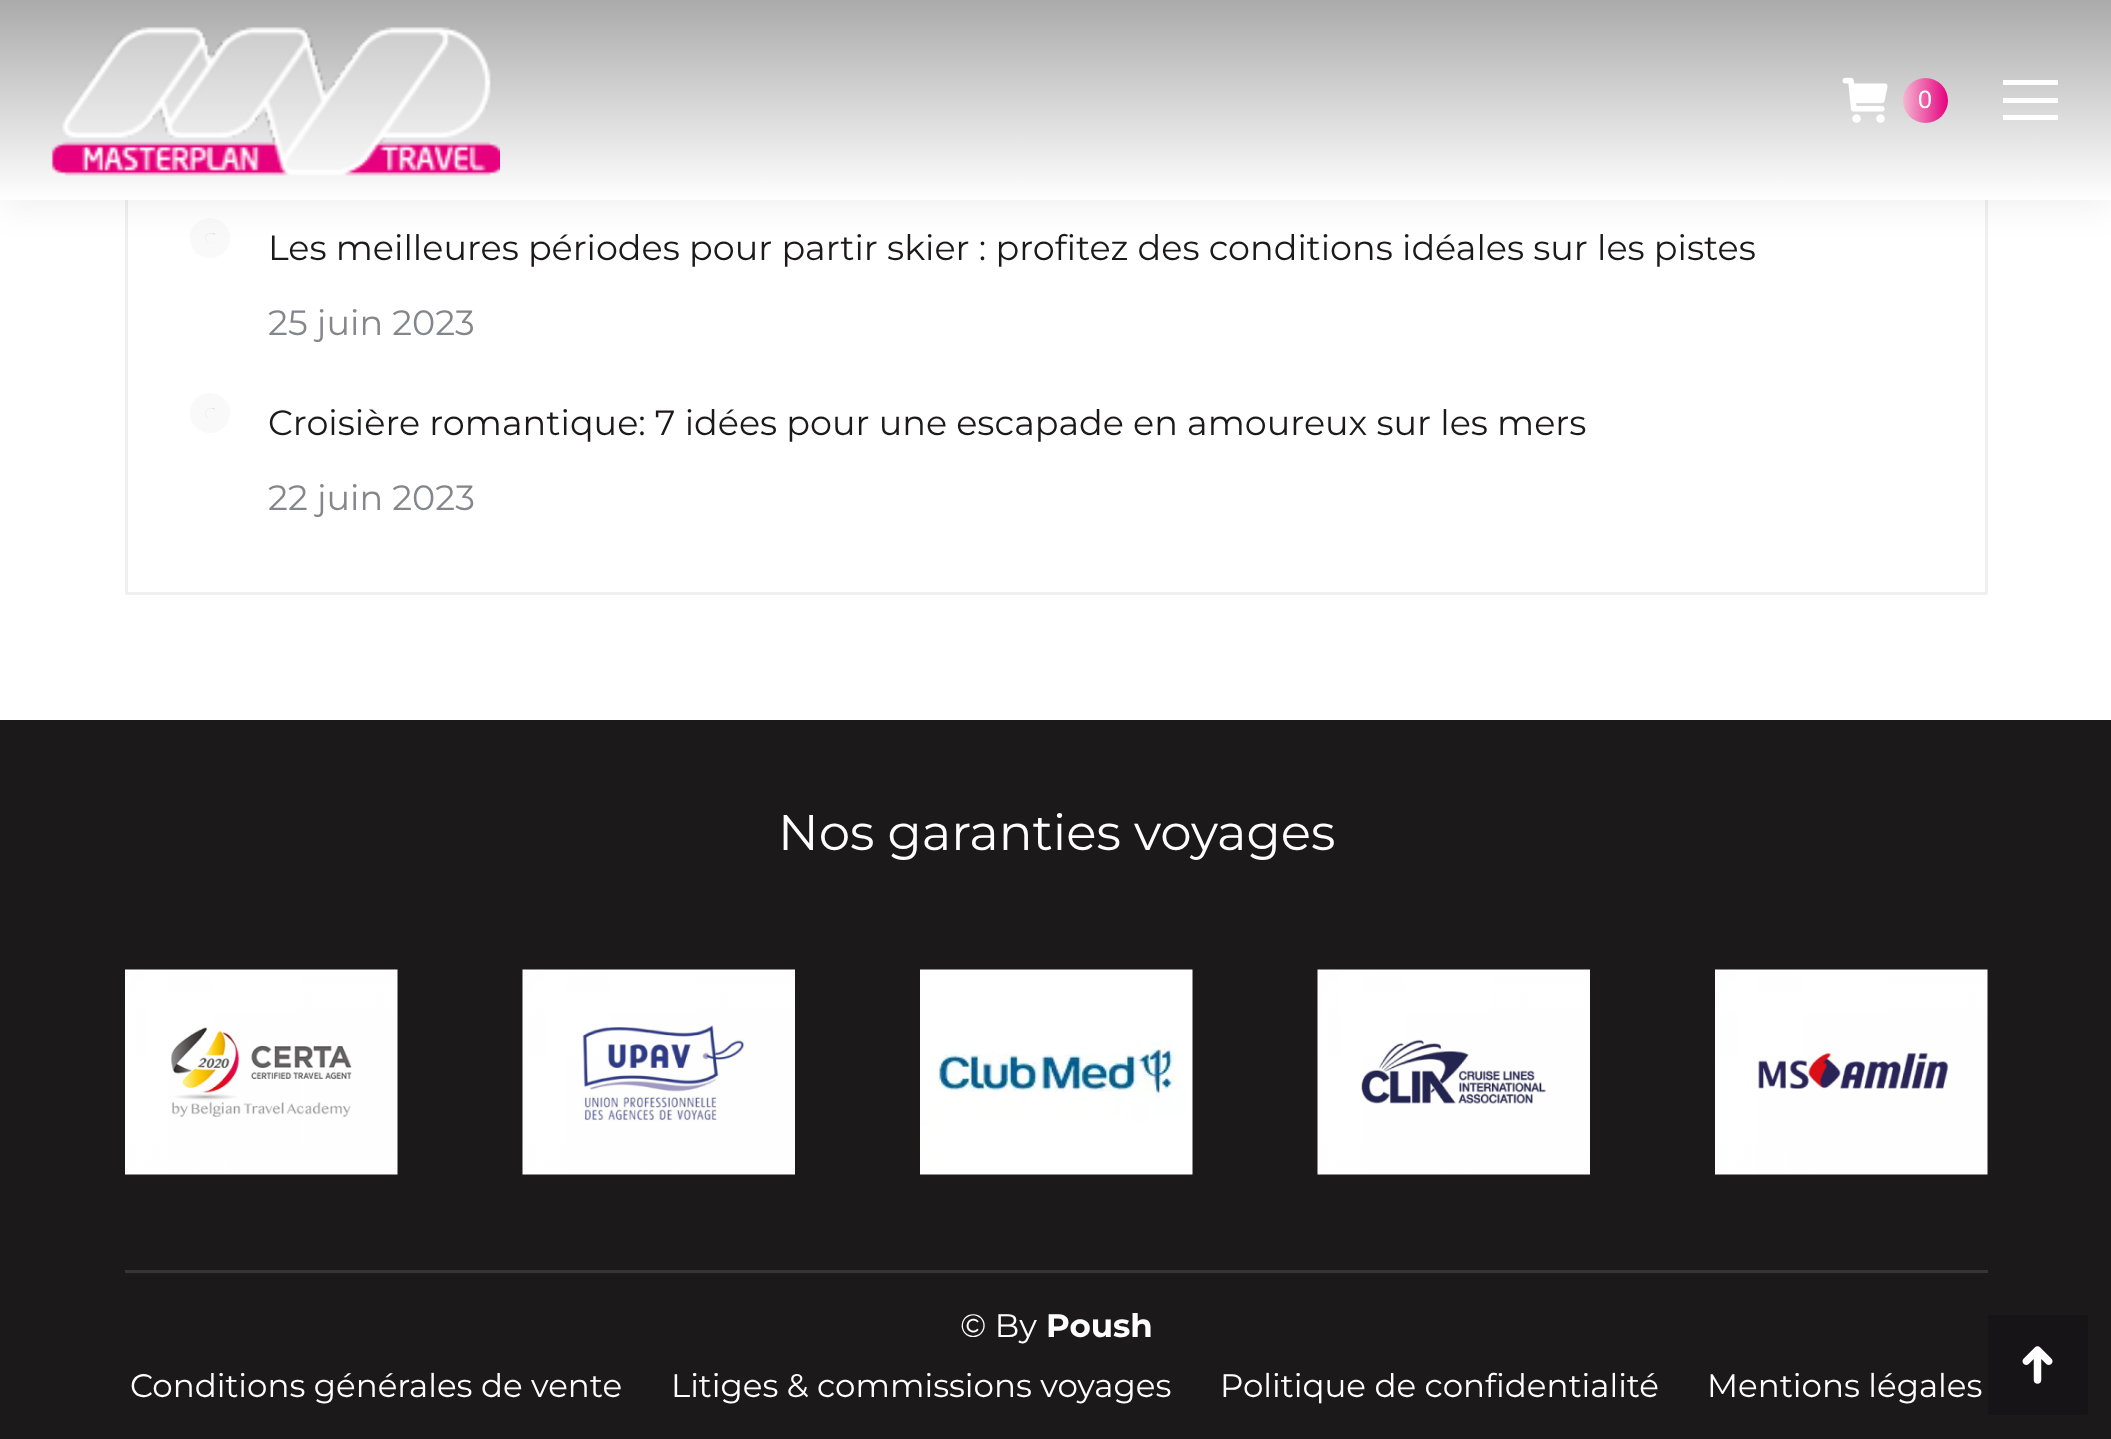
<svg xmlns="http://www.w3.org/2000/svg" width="2111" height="1439">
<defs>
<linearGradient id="g1" gradientUnits="userSpaceOnUse" x1="1056" y1="-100" x2="1056" y2="200"><stop offset="0" stop-color="#808080"/><stop offset="1" stop-color="#fff"/></linearGradient>
<linearGradient id="g2" gradientUnits="userSpaceOnUse" x1="1903" y1="100" x2="1948" y2="100"><stop offset="0" stop-color="#f5b5d2"/><stop offset="1" stop-color="#e6007e"/></linearGradient>
</defs>
<rect width="100%" height="100%" fill="#fff"/>
<rect x="126.5" y="-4.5" width="1860" height="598" rx="1" fill="none" stroke="#f0f0f0" stroke-width="3"/>
<circle cx="210" cy="238" r="20" fill="#f9f9f9"/>
<image x="205" y="233" width="10" height="10" href="media/3.png"/>
<rect x="-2" y="-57" width="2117" height="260" fill="#00000012" filter="blur(19px)"/>
<rect width="2111" height="200" fill="url(#g1)"/>
<image x="51" y="27" width="449" height="149" href="media/1.png"/>
<image x="1842" y="77" width="46" height="46" href="media/2.png"/>
<circle cx="1925.5" cy="100.5" r="22.5" fill="url(#g2)"/>
<text x="1918" y="108" style="font-family:Liberation Sans;font-size:25px;fill:#fff">0</text>
<rect x="2003" y="80" width="55" height="5" fill="#fff"/>
<rect x="2003" y="98" width="55" height="5" fill="#fff"/>
<rect x="2003" y="115" width="55" height="5" fill="#fff"/>
<text x="268" y="260" style="font-family:Montserrat;font-size:35px;fill:#1c191b">Les meilleures périodes pour partir skier : profitez des conditions idéales sur les pistes</text>
<text x="268" y="335" style="font-family:Montserrat;font-size:35px;fill:#85868c">25 juin 2023</text>
<circle cx="210" cy="413" r="20" fill="#f9f9f9"/>
<image x="205" y="408" width="10" height="10" href="media/3.png"/>
<text x="268" y="435" style="font-family:Montserrat;font-size:35px;fill:#1c191b">Croisière romantique: 7 idées pour une escapade en amoureux sur les mers</text>
<text x="268" y="510" style="font-family:Montserrat;font-size:35px;fill:#85868c">22 juin 2023</text>
<rect y="720" width="2111" height="719" fill="#1c191b"/>
<text x="778" y="850" style="font-family:Montserrat;font-size:50px;fill:#fff">Nos garanties voyages</text>
<image x="125" y="969" width="273" height="206" href="media/4.png"/>
<image x="522" y="969" width="273" height="206" href="media/5.png"/>
<image x="920" y="969" width="273" height="206" href="media/6.png"/>
<image x="1317" y="969" width="273" height="206" href="media/7.png"/>
<image x="1715" y="969" width="273" height="206" href="media/8.png"/>
<rect x="125" y="1270" width="1863" height="3" fill="#373536"/>
<text x="960" y="1337" style="font-family:Montserrat;font-size:32.5px;fill:#fff">© By</text>
<text x="1046" y="1337" style="font-family:Montserrat;font-size:32.5px;font-weight:bold;fill:#fff">Poush</text>
<text x="130" y="1397" style="font-family:Montserrat;font-size:32.5px;fill:#fff">Conditions générales de vente</text>
<text x="671" y="1397" style="font-family:Montserrat;font-size:32.5px;fill:#fff">Litiges &amp; commissions voyages</text>
<text x="1220" y="1397" style="font-family:Montserrat;font-size:32.5px;fill:#fff">Politique de confidentialité</text>
<text x="1707" y="1397" style="font-family:Montserrat;font-size:32.5px;fill:#fff">Mentions légales</text>
<rect x="1988" y="1315" width="100" height="100" rx="2.5" fill="#161416"/>
<image x="2022" y="1346" width="31" height="38" href="media/9.png"/>
</svg>
